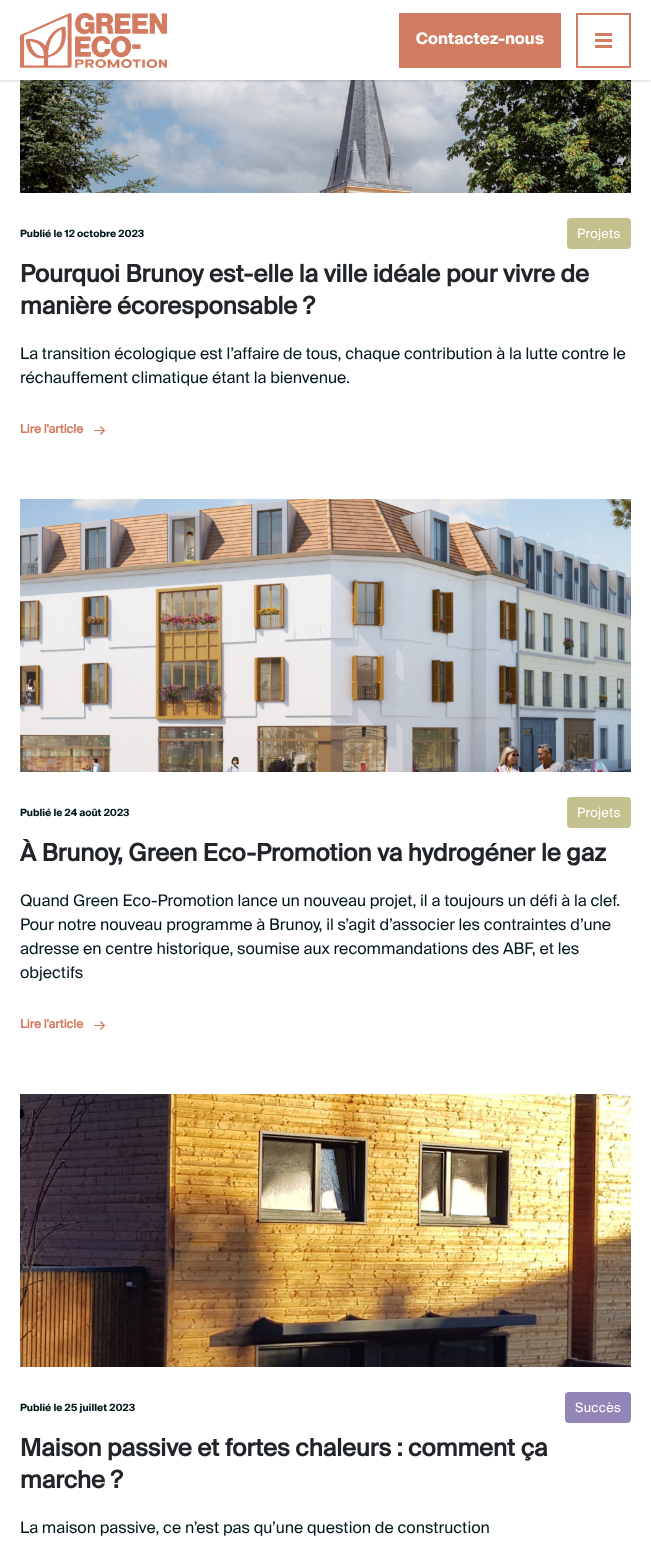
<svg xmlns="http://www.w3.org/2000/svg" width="651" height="1562">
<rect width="100%" height="100%" fill="#fff"/>
<image x="20" y="80" width="611" height="113" href="media/2.png"/>
<rect y="1" width="651" height="80" fill="#00000029" filter="blur(1px)"/>
<rect width="651" height="80" fill="#fff"/>
<image x="20" y="13" width="147" height="55" href="media/1.png"/>
<rect x="400" y="14" width="160" height="53" fill="#d37b60" stroke="#d37b60" stroke-width="2"/>
<text x="416" y="44" style="font-family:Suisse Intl;font-size:16px;font-weight:bold;fill:#fff">Contactez-nous</text>
<rect x="577" y="14" width="53" height="53" fill="none" stroke="#d37b60" stroke-width="2"/>
<rect x="595" y="33" width="17" height="3" fill="#d37b60"/>
<rect x="595" y="39" width="17" height="3" fill="#d37b60"/>
<rect x="595" y="45" width="17" height="3" fill="#d37b60"/>
<text x="20" y="237" style="font-family:Suisse Intl;font-size:10px;font-weight:bold;fill:#01171a">Publié le 12 octobre 2023</text>
<rect x="568" y="219" width="62" height="29" rx="3" fill="#c5c18e" stroke="#c5c18e" stroke-width="2"/>
<text x="577" y="238" style="font-family:Suisse Intl;font-size:13px;letter-spacing:0.25px;fill:#fff">Projets</text>
<text x="20" y="282" style="font-family:'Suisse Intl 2';font-size:24px;font-weight:bold;fill:#212529">Pourquoi Brunoy est-elle la ville idéale pour vivre de</text>
<text x="20" y="314" style="font-family:'Suisse Intl 2';font-size:24px;font-weight:bold;fill:#212529">manière écoresponsable ?</text>
<text x="20" y="359" style="font-family:Suisse Intl;font-size:16px;fill:#01171a">La transition écologique est l’affaire de tous, chaque contribution à la lutte contre le</text>
<text x="20" y="383" style="font-family:Suisse Intl;font-size:16px;fill:#01171a">réchauffement climatique étant la bienvenue.</text>
<text x="20" y="433" style="font-family:'Suisse Intl 2';font-size:12px;font-weight:bold;fill:#d37b60">Lire l'article</text>
<image x="94" y="426" width="12" height="9" href="media/3.png"/>
<image x="20" y="499" width="611" height="273" href="media/4.png"/>
<text x="293" y="639" style="font-family:Suisse Intl;font-size:16px;fill:#d9dbe0">i</text>
<text x="319" y="639" style="font-family:Suisse Intl;font-size:16px;fill:#d9dbe0">'</text>
<text x="354" y="639" style="font-family:Suisse Intl;font-size:16px;fill:#d9dbe0">l</text>
<text x="20" y="816" style="font-family:Suisse Intl;font-size:10px;font-weight:bold;fill:#01171a">Publié le 24 août 2023</text>
<rect x="568" y="798" width="62" height="29" rx="3" fill="#c5c18e" stroke="#c5c18e" stroke-width="2"/>
<text x="577" y="817" style="font-family:Suisse Intl;font-size:13px;letter-spacing:0.25px;fill:#fff">Projets</text>
<text x="20" y="861" style="font-family:'Suisse Intl 2';font-size:24px;font-weight:bold;fill:#212529">À Brunoy, Green Eco-Promotion va hydrogéner le gaz</text>
<text x="20" y="906" style="font-family:Suisse Intl;font-size:16px;fill:#01171a">Quand Green Eco-Promotion lance un nouveau projet, il a toujours un défi à la clef.</text>
<text x="20" y="930" style="font-family:Suisse Intl;font-size:16px;fill:#01171a">Pour notre nouveau programme à Brunoy, il s’agit d’associer les contraintes d’une</text>
<text x="20" y="954" style="font-family:Suisse Intl;font-size:16px;fill:#01171a">adresse en centre historique, soumise aux recommandations des ABF, et les</text>
<text x="20" y="978" style="font-family:Suisse Intl;font-size:16px;fill:#01171a">objectifs</text>
<text x="20" y="1028" style="font-family:'Suisse Intl 2';font-size:12px;font-weight:bold;fill:#d37b60">Lire l'article</text>
<image x="94" y="1021" width="12" height="9" href="media/3.png"/>
<image x="20" y="1094" width="611" height="273" href="media/5.png"/>
<text x="20" y="1411" style="font-family:Suisse Intl;font-size:10px;font-weight:bold;fill:#01171a">Publié le 25 juillet 2023</text>
<rect x="566" y="1393" width="64" height="29" rx="3" fill="#9285b7" stroke="#9285b7" stroke-width="2"/>
<text x="575" y="1412" style="font-family:Suisse Intl;font-size:13px;letter-spacing:0.25px;fill:#fff">Succès</text>
<text x="20" y="1456" style="font-family:'Suisse Intl 2';font-size:24px;font-weight:bold;fill:#212529">Maison passive et fortes chaleurs : comment ça</text>
<text x="20" y="1488" style="font-family:'Suisse Intl 2';font-size:24px;font-weight:bold;fill:#212529">marche ?</text>
<text x="20" y="1533" style="font-family:Suisse Intl;font-size:16px;fill:#01171a">La maison passive, ce n’est pas qu’une question de construction</text>
</svg>
